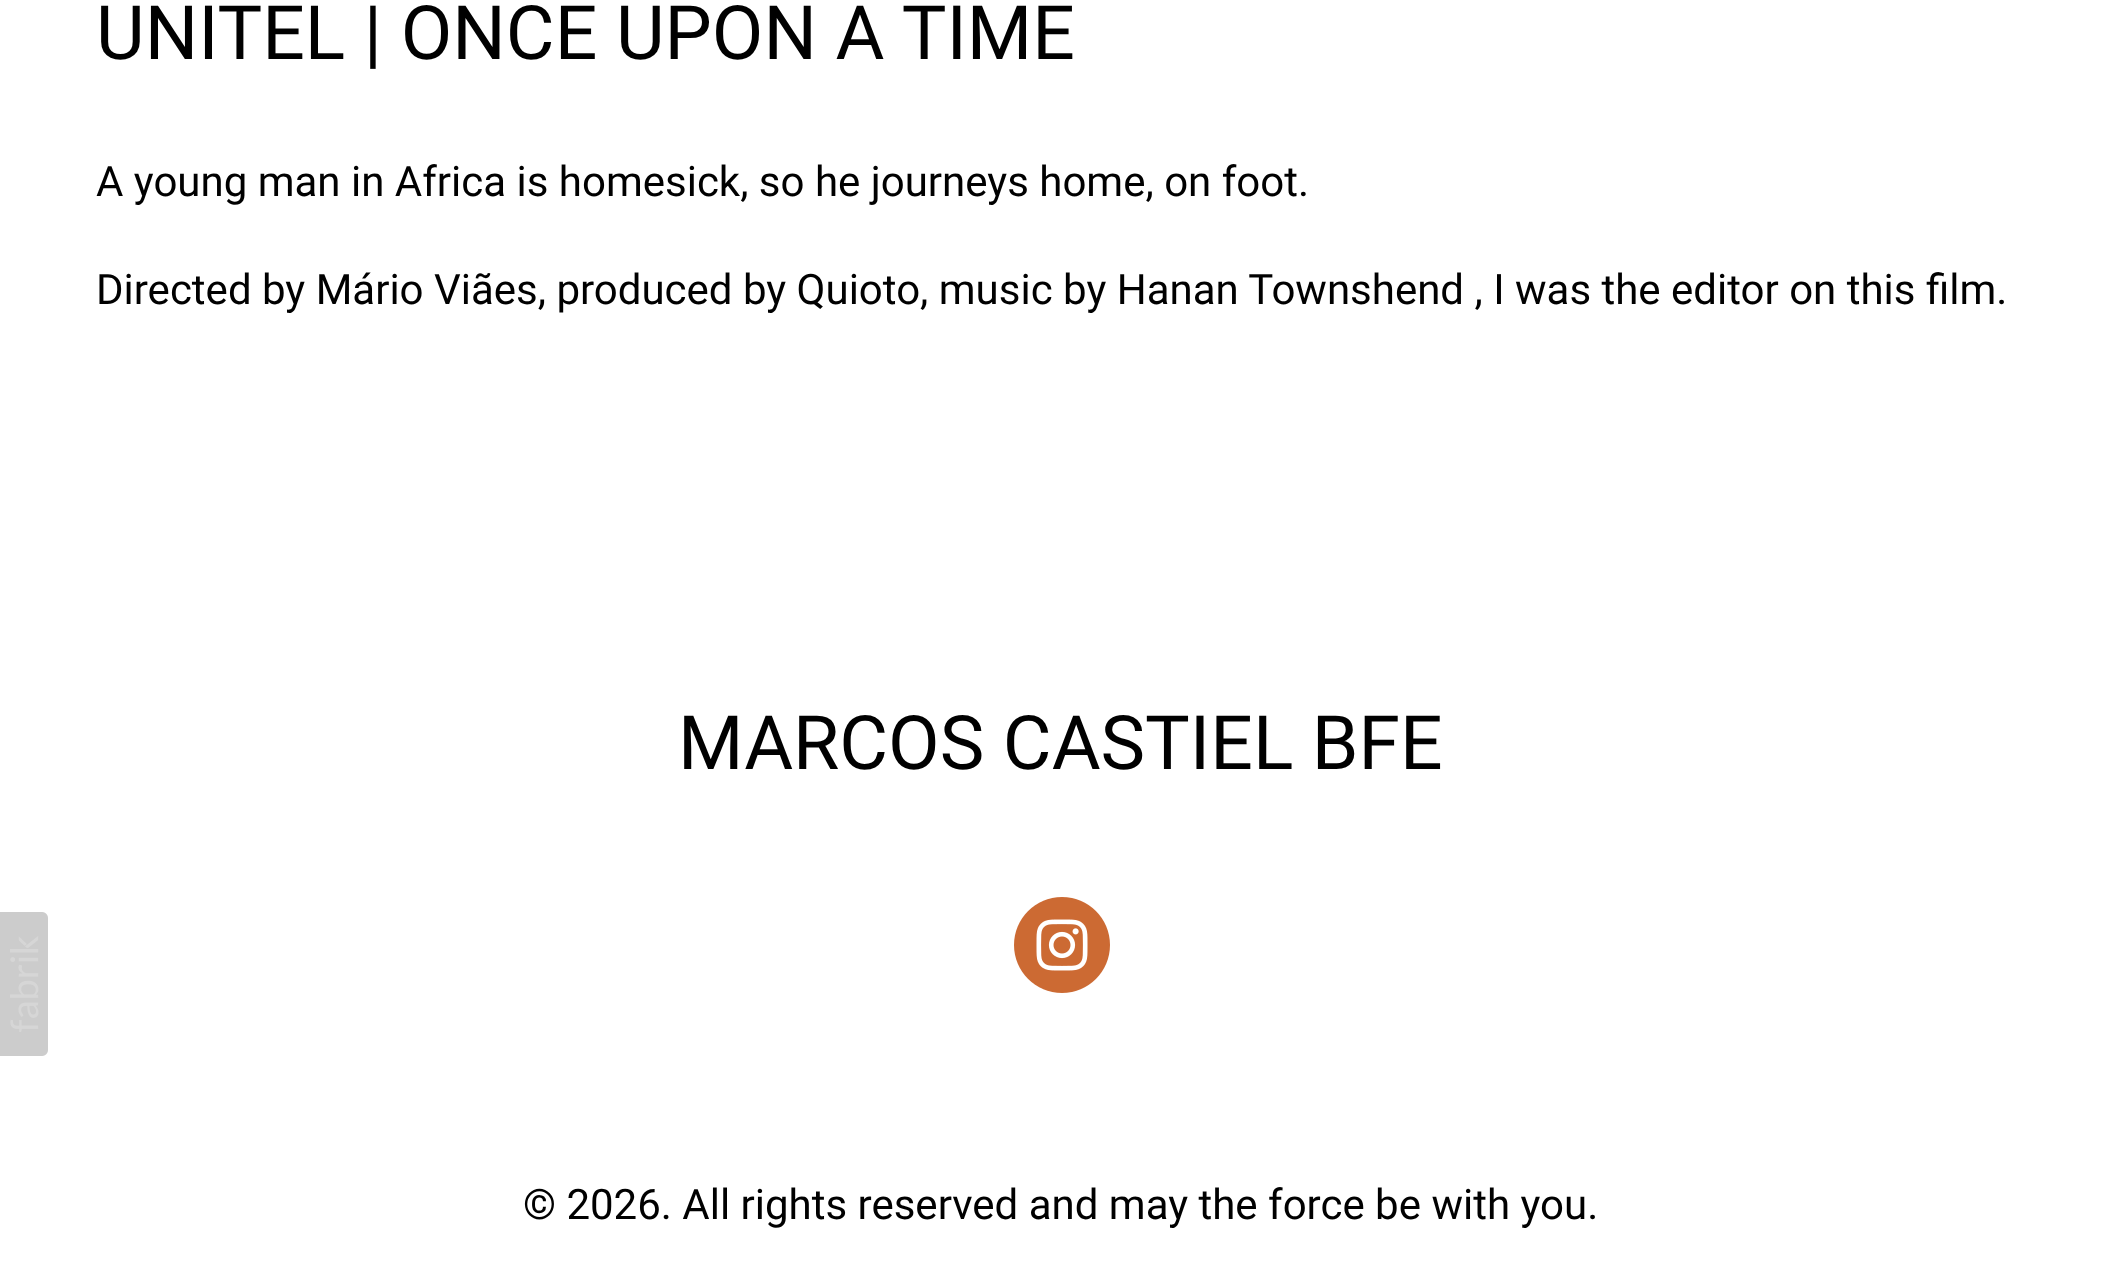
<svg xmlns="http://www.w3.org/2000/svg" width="2119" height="1284">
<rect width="100%" height="100%" fill="#fff"/>
<image x="0" y="912" width="48" height="144" href="media/1.png"/>
<text x="96" y="59" style="font-family:Roboto;font-size:75px;fill:#000">UNITEL | ONCE UPON A TIME</text>
<text x="96" y="196" style="font-family:Roboto;font-size:42px;fill:#000">A young man in Africa is homesick, so he journeys home, on foot.</text>
<text x="96" y="304" style="font-family:Roboto;font-size:42px;fill:#000">Directed by Mário Viães, produced by Quioto, music by Hanan Townshend , I was the editor on this film.</text>
<text x="678" y="769" style="font-family:Roboto;font-size:75px;fill:#000">MARCOS CASTIEL BFE</text>
<image x="1014" y="897" width="96" height="96" href="media/2.png"/>
<text x="523" y="1219" style="font-family:Roboto;font-size:42px;fill:#000">© 2026. All rights reserved and may the force be with you.</text>
</svg>
